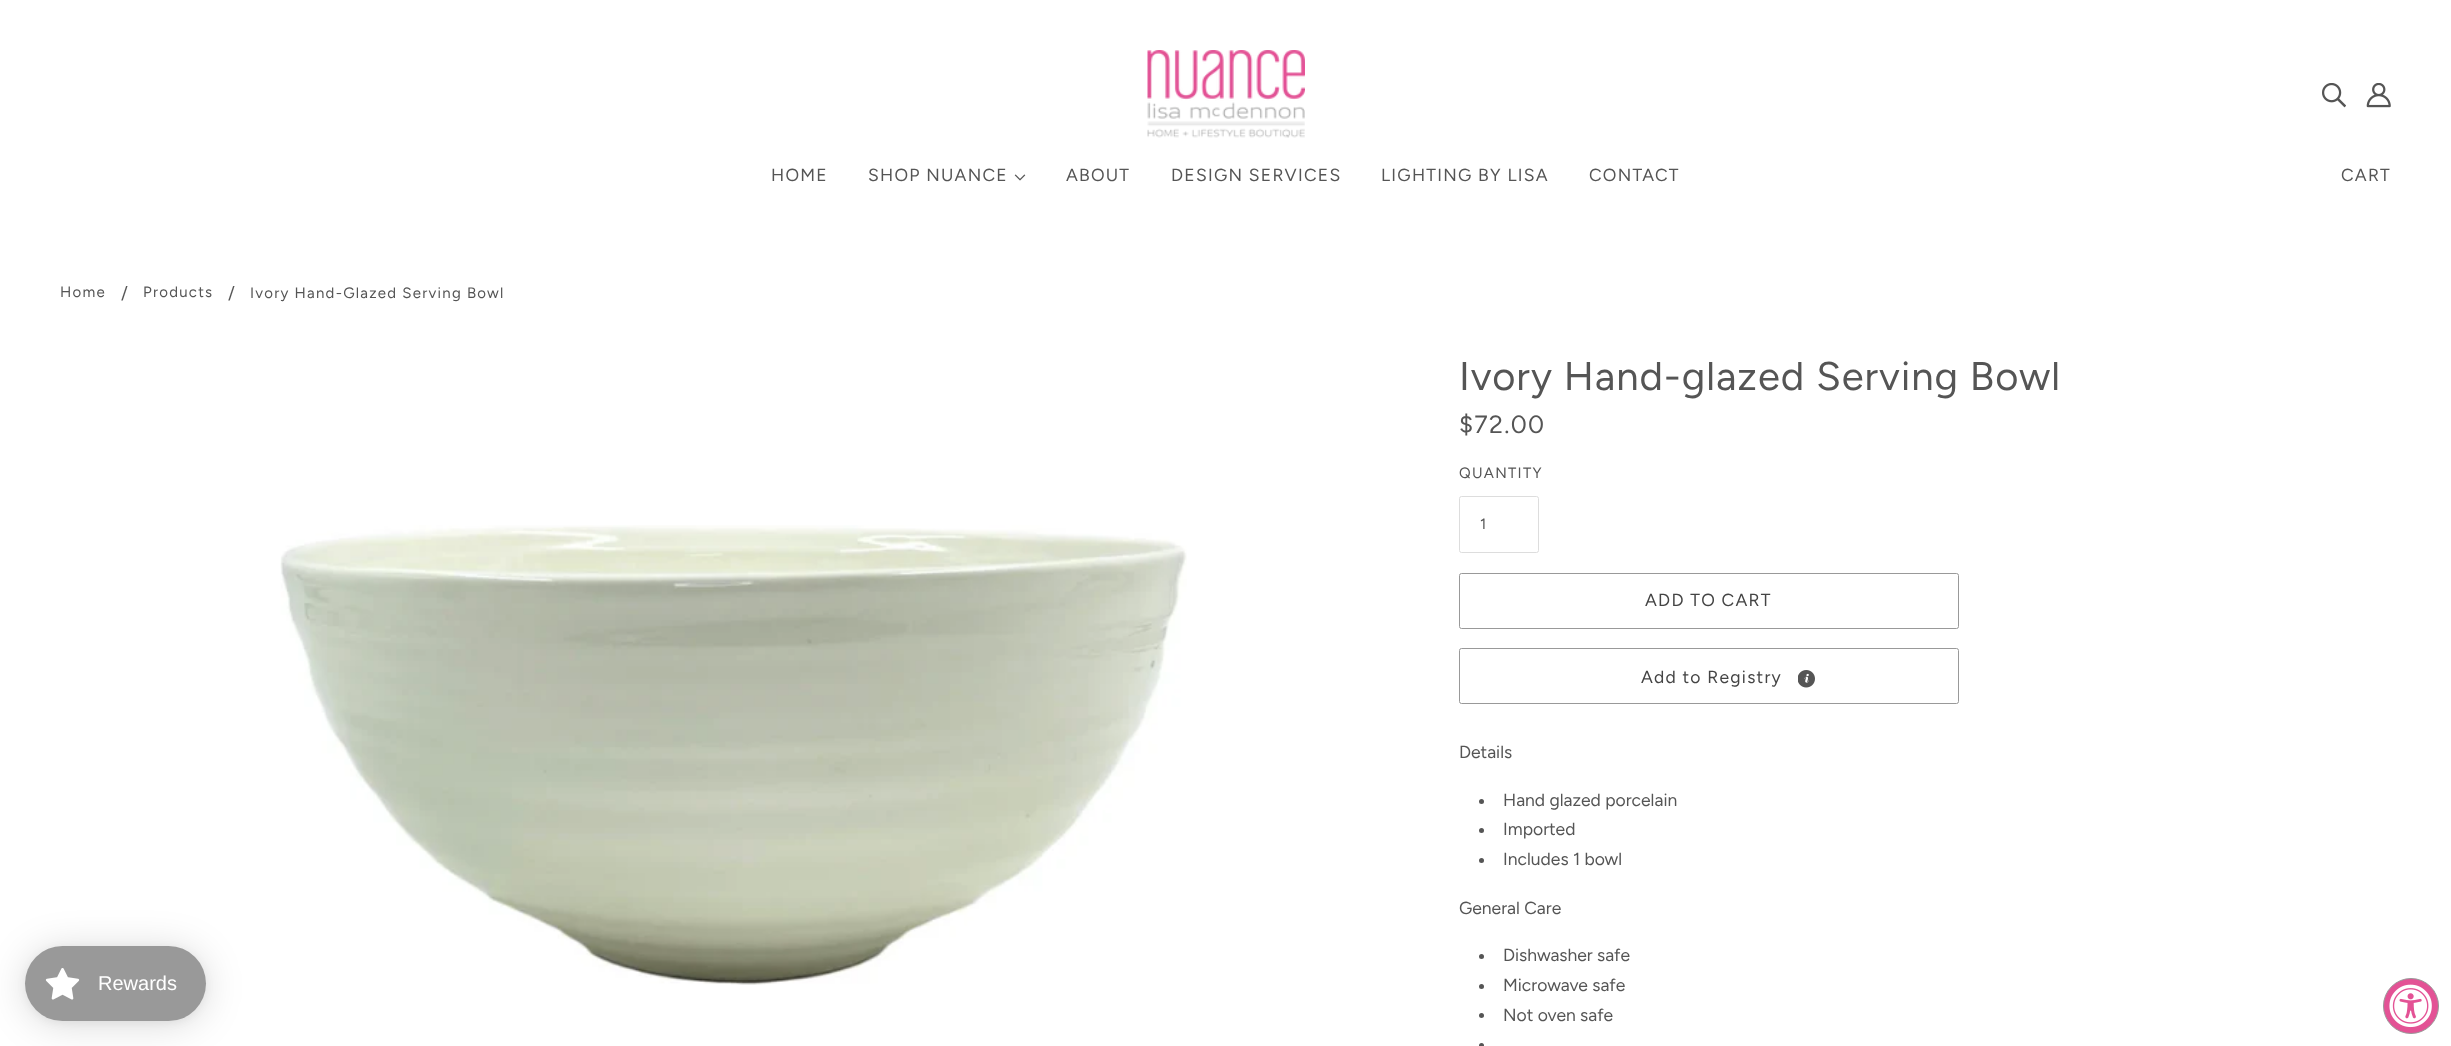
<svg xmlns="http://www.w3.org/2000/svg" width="2451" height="1046">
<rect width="100%" height="100%" fill="#fff"/>
<image x="1147" y="50" width="158" height="88" href="media/1.png"/>
<image x="2322" y="83" width="24" height="25" href="media/2.png"/>
<image x="2366" y="83" width="25" height="25" href="media/3.png"/>
<text x="771" y="181" style="font-family:Figtree;font-size:17.5px;letter-spacing:1.25px;fill:#555">HOME</text>
<text x="868" y="181" style="font-family:Figtree;font-size:17.5px;letter-spacing:1.25px;fill:#555">SHOP NUANCE</text>
<image x="1014" y="174" width="12" height="7" href="media/4.png"/>
<text x="1066" y="181" style="font-family:Figtree;font-size:17.5px;letter-spacing:1.25px;fill:#555">ABOUT</text>
<text x="1171" y="181" style="font-family:Figtree;font-size:17.5px;letter-spacing:1.25px;fill:#555">DESIGN SERVICES</text>
<text x="1381" y="181" style="font-family:Figtree;font-size:17.5px;letter-spacing:1.25px;fill:#555">LIGHTING BY LISA</text>
<text x="1589" y="181" style="font-family:Figtree;font-size:17.5px;letter-spacing:1.25px;fill:#555">CONTACT</text>
<text x="2341" y="181" style="font-family:Figtree;font-size:17.5px;letter-spacing:1.25px;fill:#555">CART</text>
<text x="60" y="297" style="font-family:Figtree;font-size:15px;letter-spacing:1.25px;fill:#555">Home</text>
<text x="121" y="299" style="font-family:Figtree;font-size:17.5px;fill:#555">/</text>
<text x="143" y="297" style="font-family:Figtree;font-size:15px;letter-spacing:1.25px;fill:#555">Products</text>
<text x="228" y="299" style="font-family:Figtree;font-size:17.5px;fill:#555">/</text>
<text x="250" y="298" style="font-family:Figtree;font-size:15px;letter-spacing:1.25px;fill:#555">Ivory Hand-Glazed Serving Bowl</text>
<text x="1459" y="390" style="font-family:Figtree;font-size:40px;letter-spacing:1px;fill:#555">Ivory Hand-glazed Serving Bowl</text>
<image x="280" y="525" width="907" height="460" href="media/5.png"/>
<text x="1459" y="433" style="font-family:Figtree;font-size:25px;letter-spacing:1.25px;fill:#555">$72.00</text>
<text x="1459" y="478" style="font-family:Figtree;font-size:15px;letter-spacing:1.25px;fill:#555">QUANTITY</text>
<rect x="1459.5" y="496.5" width="79" height="56" rx="2" fill="none" stroke="#ddd"/>
<text x="1480" y="529" style="font-family:Figtree;font-size:15px;letter-spacing:1.25px;fill:#555">1</text>
<rect x="1459.5" y="573.5" width="499" height="55" rx="2" fill="none" stroke="#999"/>
<text x="1645" y="606" style="font-family:Figtree;font-size:17.5px;letter-spacing:1.25px;fill:#444">ADD TO CART</text>
<rect x="1459.5" y="648.5" width="499" height="55" rx="2" fill="none" stroke="#999"/>
<text x="1641" y="683" style="font-family:Figtree;font-size:17.5px;letter-spacing:1.25px;fill:#444">Add to Registry</text>
<image x="1798" y="670" width="17" height="18" href="media/6.png"/>
<text x="1459" y="758" style="font-family:Figtree;font-size:17.5px;fill:#555">Details</text>
<circle cx="1481.5" cy="801.5" r="2.5" fill="#555"/>
<text x="1503" y="806" style="font-family:Figtree;font-size:17.5px;fill:#555">Hand glazed porcelain</text>
<circle cx="1481.5" cy="830.5" r="2.5" fill="#555"/>
<text x="1503" y="835" style="font-family:Figtree;font-size:17.5px;fill:#555">Imported</text>
<circle cx="1481.5" cy="860.5" r="2.5" fill="#555"/>
<text x="1503" y="865" style="font-family:Figtree;font-size:17.5px;fill:#555">Includes 1 bowl</text>
<text x="1459" y="914" style="font-family:Figtree;font-size:17.5px;fill:#555">General Care</text>
<circle cx="1481.5" cy="956.5" r="2.5" fill="#555"/>
<text x="1503" y="961" style="font-family:Figtree;font-size:17.5px;fill:#555">Dishwasher safe</text>
<circle cx="1481.5" cy="986.5" r="2.5" fill="#555"/>
<text x="1503" y="991" style="font-family:Figtree;font-size:17.5px;fill:#555">Microwave safe</text>
<circle cx="1481.5" cy="1015.5" r="2.5" fill="#555"/>
<text x="1503" y="1021" style="font-family:Figtree;font-size:17.5px;fill:#555">Not oven safe</text>
<circle cx="1481.5" cy="1045.5" r="2.5" fill="#555"/>
<rect x="25" y="949" width="181" height="75" rx="37.5" fill="#00000026" filter="blur(19px)"/>
<rect x="25" y="948" width="181" height="75" rx="37.5" fill="#0000000d" filter="blur(4px)"/>
<rect x="25" y="946" width="181" height="75" rx="37.5" fill="#999"/>
<image x="45" y="968" width="35" height="32" href="media/7.png"/>
<text x="98" y="990" style="font-family:Liberation Sans;font-size:20px;fill:#fff">Rewards</text>
<circle cx="2411" cy="1006" r="27.5" fill="#e35295" stroke="#999"/>
<image x="2389" y="984" width="43" height="44" href="media/8.png"/>
</svg>
